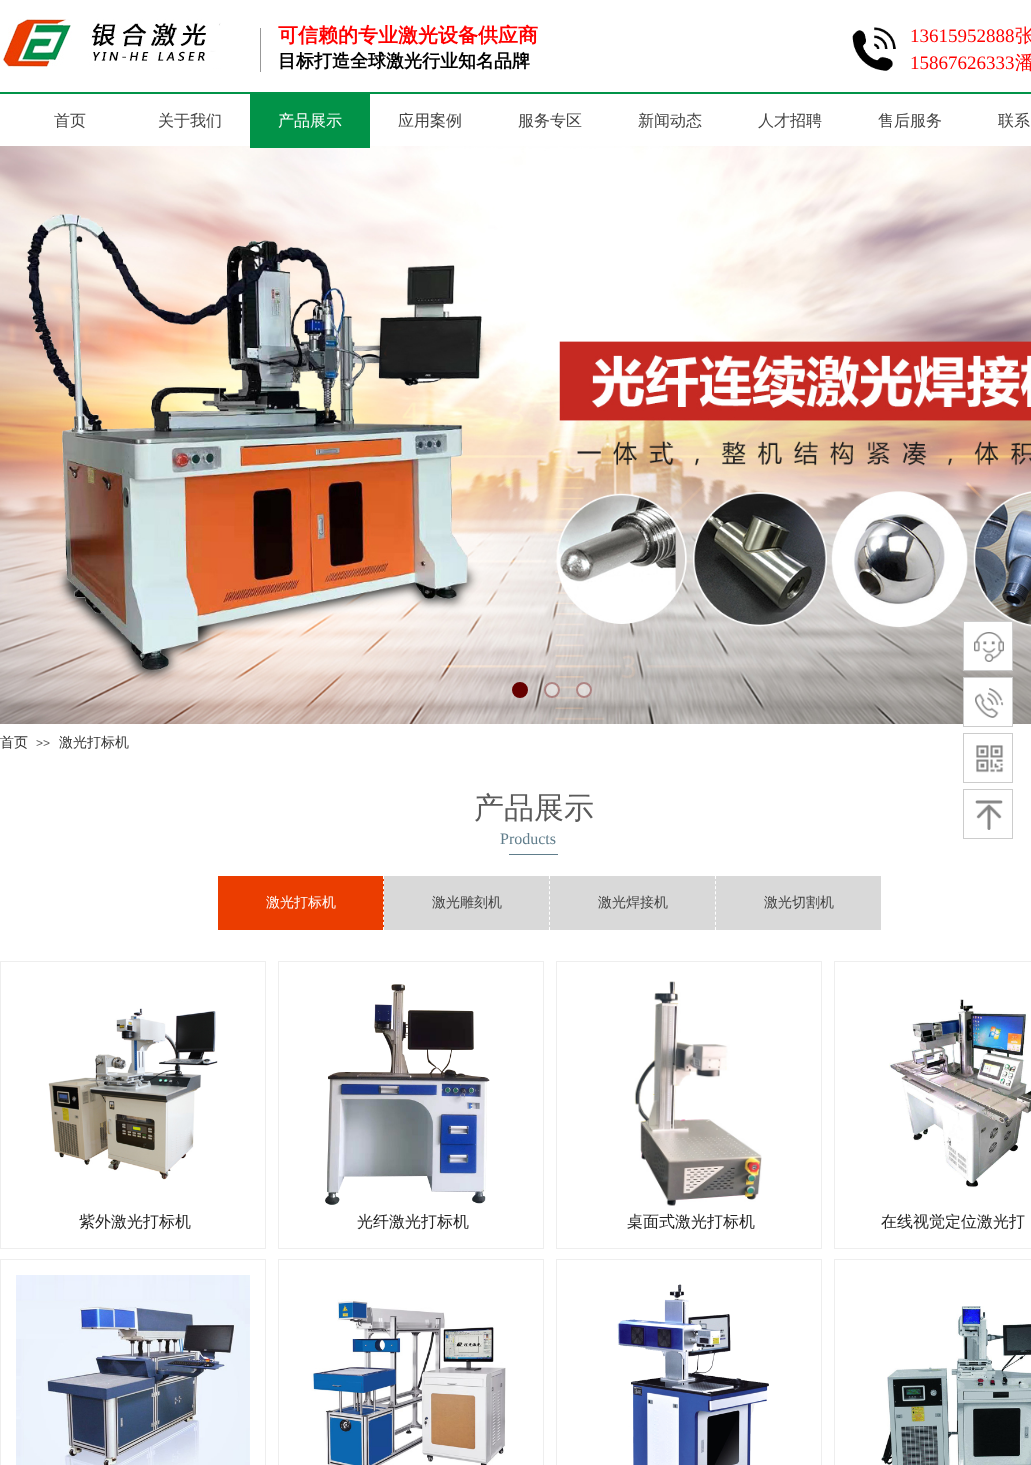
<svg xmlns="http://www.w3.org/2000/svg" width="1031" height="1465">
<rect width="100%" height="100%" fill="#fff"/>
<image x="0" y="19" width="221" height="50" href="media/1.png"/>
<rect x="260" y="28" width="1" height="44" fill="#989898"/>
<text x="278" y="42" style="font-family:WenQuanYi Zen Hei;font-size:20px;font-weight:bold;fill:#f00">可信赖的专业激光设备供应商</text>
<text x="278" y="67" style="font-family:WenQuanYi Zen Hei;font-size:18px;font-weight:bold;fill:#000">目标打造全球激光行业知名品牌</text>
<image x="852" y="27" width="44" height="44" href="media/2.png"/>
<text x="910" y="42" style="font-family:Liberation Serif;font-size:19px;fill:#f00">13615952888</text>
<text x="1015" y="42" style="font-family:WenQuanYi Zen Hei;font-size:19px;font-weight:500;fill:#f00">张</text>
<text x="910" y="69" style="font-family:Liberation Serif;font-size:19px;fill:#f00">15867626333</text>
<text x="1015" y="69" style="font-family:WenQuanYi Zen Hei;font-size:19px;font-weight:500;fill:#f00">潘</text>
<rect y="92" width="1031" height="2" fill="#019348"/>
<text x="54" y="126" style="font-family:WenQuanYi Zen Hei;font-size:16px;font-weight:500;fill:#434343">首页</text>
<text x="158" y="126" style="font-family:WenQuanYi Zen Hei;font-size:16px;font-weight:500;fill:#434343">关于我们</text>
<image x="0" y="146" width="1031" height="578" href="media/3.png"/>
<rect x="250" y="94" width="120" height="54" fill="#019348"/>
<text x="278" y="126" style="font-family:WenQuanYi Zen Hei;font-size:16px;font-weight:500;fill:#fff">产品展示</text>
<text x="398" y="126" style="font-family:WenQuanYi Zen Hei;font-size:16px;font-weight:500;fill:#434343">应用案例</text>
<text x="518" y="126" style="font-family:WenQuanYi Zen Hei;font-size:16px;font-weight:500;fill:#434343">服务专区</text>
<text x="638" y="126" style="font-family:WenQuanYi Zen Hei;font-size:16px;font-weight:500;fill:#434343">新闻动态</text>
<text x="758" y="126" style="font-family:WenQuanYi Zen Hei;font-size:16px;font-weight:500;fill:#434343">人才招聘</text>
<text x="878" y="126" style="font-family:WenQuanYi Zen Hei;font-size:16px;font-weight:500;fill:#434343">售后服务</text>
<text x="998" y="126" style="font-family:WenQuanYi Zen Hei;font-size:16px;font-weight:500;fill:#434343">联系</text>
<circle cx="520" cy="690" r="7" fill="#600" stroke="#600" stroke-width="2"/>
<circle cx="552" cy="690" r="8" fill="#ffffff66"/>
<circle cx="552" cy="690" r="7" fill="none" stroke="#66000066" stroke-width="2"/>
<circle cx="584" cy="690" r="8" fill="#ffffff66"/>
<circle cx="584" cy="690" r="7" fill="none" stroke="#66000066" stroke-width="2"/>
<text x="0" y="747" style="font-family:WenQuanYi Zen Hei;font-size:14px;font-weight:500;fill:#333">首页</text>
<text x="36" y="747" style="font-family:Liberation Sans;font-size:12px;fill:#5a5a5a">&gt;&gt;</text>
<text x="59" y="747" style="font-family:WenQuanYi Zen Hei;font-size:14px;font-weight:500;fill:#333">激光打标机</text>
<text x="474" y="818" style="font-family:WenQuanYi Zen Hei;font-size:30px;font-weight:500;fill:#5a5a5a">产品展示</text>
<text x="500" y="844" style="font-family:Liberation Serif;font-size:16px;fill:#607d8b">Products</text>
<rect x="509" y="854" width="49" height="1" fill="#607d8b"/>
<rect x="218" y="876" width="166" height="54" fill="#eb3d00"/>
<path d="M383.5 876v54" fill="none" stroke="#fff" stroke-dasharray="3 2.1"/>
<text x="266" y="907" style="font-family:WenQuanYi Zen Hei;font-size:14px;font-weight:500;fill:#fff">激光打标机</text>
<rect x="384" y="876" width="497" height="54" fill="#d9d9d9"/>
<path d="M549.5 876v54" fill="none" stroke="#fff" stroke-dasharray="3 2.1"/>
<text x="432" y="907" style="font-family:WenQuanYi Zen Hei;font-size:14px;font-weight:500;fill:#434343">激光雕刻机</text>
<path d="M715.5 876v54" fill="none" stroke="#fff" stroke-dasharray="3 2.1"/>
<text x="598" y="907" style="font-family:WenQuanYi Zen Hei;font-size:14px;font-weight:500;fill:#434343">激光焊接机</text>
<text x="764" y="907" style="font-family:WenQuanYi Zen Hei;font-size:14px;font-weight:500;fill:#434343">激光切割机</text>
<rect x="0.5" y="961.5" width="265" height="287" fill="none" stroke="#eee"/>
<image x="48" y="1008" width="170" height="172" href="media/4.png"/>
<text x="79" y="1227" style="font-family:WenQuanYi Zen Hei;font-size:16px;font-weight:500;fill:#242424">紫外激光打标机</text>
<rect x="278.5" y="961.5" width="265" height="287" fill="none" stroke="#eee"/>
<image x="325" y="984" width="165" height="221" href="media/5.png"/>
<text x="357" y="1227" style="font-family:WenQuanYi Zen Hei;font-size:16px;font-weight:500;fill:#242424">光纤激光打标机</text>
<rect x="556.5" y="961.5" width="265" height="287" fill="none" stroke="#eee"/>
<image x="634" y="981" width="128" height="225" href="media/6.png"/>
<text x="627" y="1227" style="font-family:WenQuanYi Zen Hei;font-size:16px;font-weight:500;fill:#242424">桌面式激光打标机</text>
<rect x="834.5" y="961.5" width="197" height="287" fill="none" stroke="#eee"/>
<image x="889" y="999" width="142" height="189" href="media/7.png"/>
<text x="881" y="1227" style="font-family:WenQuanYi Zen Hei;font-size:16px;font-weight:500;fill:#242424">在线视觉定位激光打</text>
<rect x="0.5" y="1259.5" width="265" height="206" fill="none" stroke="#eee"/>
<image x="16" y="1275" width="234" height="190" href="media/8.png"/>
<rect x="278.5" y="1259.5" width="265" height="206" fill="none" stroke="#eee"/>
<image x="311" y="1299" width="195" height="166" href="media/9.png"/>
<rect x="556.5" y="1259.5" width="265" height="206" fill="none" stroke="#eee"/>
<image x="617" y="1284" width="152" height="181" href="media/10.png"/>
<rect x="834.5" y="1259.5" width="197" height="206" fill="none" stroke="#eee"/>
<image x="881" y="1306" width="150" height="159" href="media/11.png"/>
<rect x="963.5" y="621.5" width="49" height="49" fill="#fff" stroke="#ccc"/>
<image x="974" y="632" width="30" height="30" href="media/12.png"/>
<rect x="964" y="678" width="48" height="46" fill="#fff"/>
<rect x="963.5" y="677.5" width="49" height="49" fill="none" stroke="#ccc"/>
<image x="975" y="688" width="29" height="30" href="media/13.png"/>
<rect x="963.5" y="733.5" width="49" height="49" fill="none" stroke="#ccc"/>
<image x="976" y="745" width="28" height="28" href="media/14.png"/>
<rect x="963.5" y="789.5" width="49" height="49" fill="none" stroke="#ccc"/>
<image x="975" y="800" width="28" height="30" href="media/15.png"/>
</svg>
